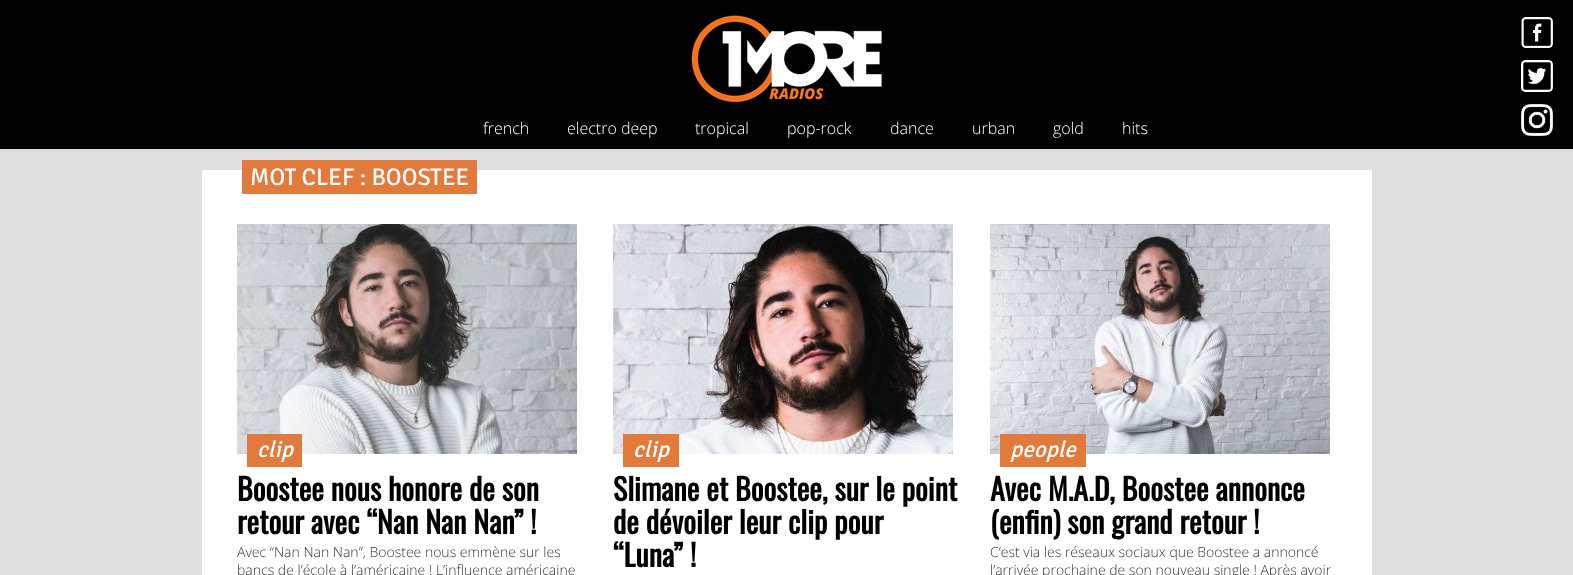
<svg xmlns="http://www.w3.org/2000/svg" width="1573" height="575">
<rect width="100%" height="100%" fill="#dfdfdf"/>
<rect width="1573" height="149" fill="#000"/>
<image x="685" y="8" width="199" height="96" href="media/1.png"/>
<image x="1521" y="17" width="32" height="31" href="media/2.png"/>
<image x="1521" y="60" width="32" height="32" href="media/3.png"/>
<image x="1521" y="104" width="32" height="32" href="media/4.png"/>
<text x="483" y="134" style="font-family:Open Sans;font-size:16px;font-weight:300;fill:#fff">french</text>
<text x="567" y="134" style="font-family:Open Sans;font-size:16px;font-weight:300;fill:#fff">electro deep</text>
<text x="695" y="134" style="font-family:Open Sans;font-size:16px;font-weight:300;fill:#fff">tropical</text>
<text x="787" y="134" style="font-family:Open Sans;font-size:16px;font-weight:300;fill:#fff">pop-rock</text>
<text x="890" y="134" style="font-family:Open Sans;font-size:16px;font-weight:300;fill:#fff">dance</text>
<text x="972" y="134" style="font-family:Open Sans;font-size:16px;font-weight:300;fill:#fff">urban</text>
<text x="1053" y="134" style="font-family:Open Sans;font-size:16px;font-weight:300;fill:#fff">gold</text>
<text x="1122" y="134" style="font-family:Open Sans;font-size:16px;font-weight:300;fill:#fff">hits</text>
<rect x="202" y="170" width="1170" height="405" fill="#fff"/>
<rect x="242" y="160" width="235" height="34" fill="#e27a3b"/>
<text x="250" y="185" style="font-family:Signika;font-size:24px;font-weight:300;fill:#fff">MOT CLEF : BOOSTEE</text>
<image x="237" y="224" width="340" height="230" href="media/5.png"/>
<rect x="247" y="434" width="55" height="33" fill="#e27a3b"/>
<text x="257" y="457" style="font-family:Signika;font-size:23px;font-weight:300;font-style:italic;fill:#fff">clip</text>
<text x="237" y="501" style="font-family:Oswald;font-size:30px;font-weight:bold;fill:#000">Boostee nous honore de son</text>
<text x="237" y="534" style="font-family:Oswald;font-size:30px;font-weight:bold;fill:#000">retour avec “Nan Nan Nan” !</text>
<text x="237" y="557" style="font-family:Open Sans;font-size:14px;font-weight:300;fill:#333">Avec “Nan Nan Nan”, Boostee nous emmène sur les</text>
<text x="237" y="575" style="font-family:Open Sans;font-size:14px;font-weight:300;fill:#333">bancs de l’école à l’américaine ! L’influence américaine</text>
<image x="613" y="224" width="340" height="230" href="media/6.png"/>
<rect x="623" y="434" width="56" height="33" fill="#e27a3b"/>
<text x="633" y="457" style="font-family:Signika;font-size:23px;font-weight:300;font-style:italic;fill:#fff">clip</text>
<text x="613" y="501" style="font-family:Oswald;font-size:30px;font-weight:bold;fill:#000">Slimane et Boostee, sur le point</text>
<text x="613" y="534" style="font-family:Oswald;font-size:30px;font-weight:bold;fill:#000">de dévoiler leur clip pour</text>
<text x="613" y="567" style="font-family:Oswald;font-size:30px;font-weight:bold;fill:#000">“Luna” !</text>
<image x="990" y="224" width="340" height="230" href="media/7.png"/>
<rect x="1000" y="434" width="86" height="33" fill="#e27a3b"/>
<text x="1010" y="457" style="font-family:Signika;font-size:23px;font-weight:300;font-style:italic;fill:#fff">people</text>
<text x="990" y="501" style="font-family:Oswald;font-size:30px;font-weight:bold;fill:#000">Avec M.A.D, Boostee annonce</text>
<text x="990" y="534" style="font-family:Oswald;font-size:30px;font-weight:bold;fill:#000">(enfin) son grand retour !</text>
<text x="990" y="557" style="font-family:Open Sans;font-size:14px;font-weight:300;fill:#333">C’est via les réseaux sociaux que Boostee a annoncé</text>
<text x="990" y="575" style="font-family:Open Sans;font-size:14px;font-weight:300;fill:#333">l’arrivée prochaine de son nouveau single ! Après avoir</text>
</svg>
